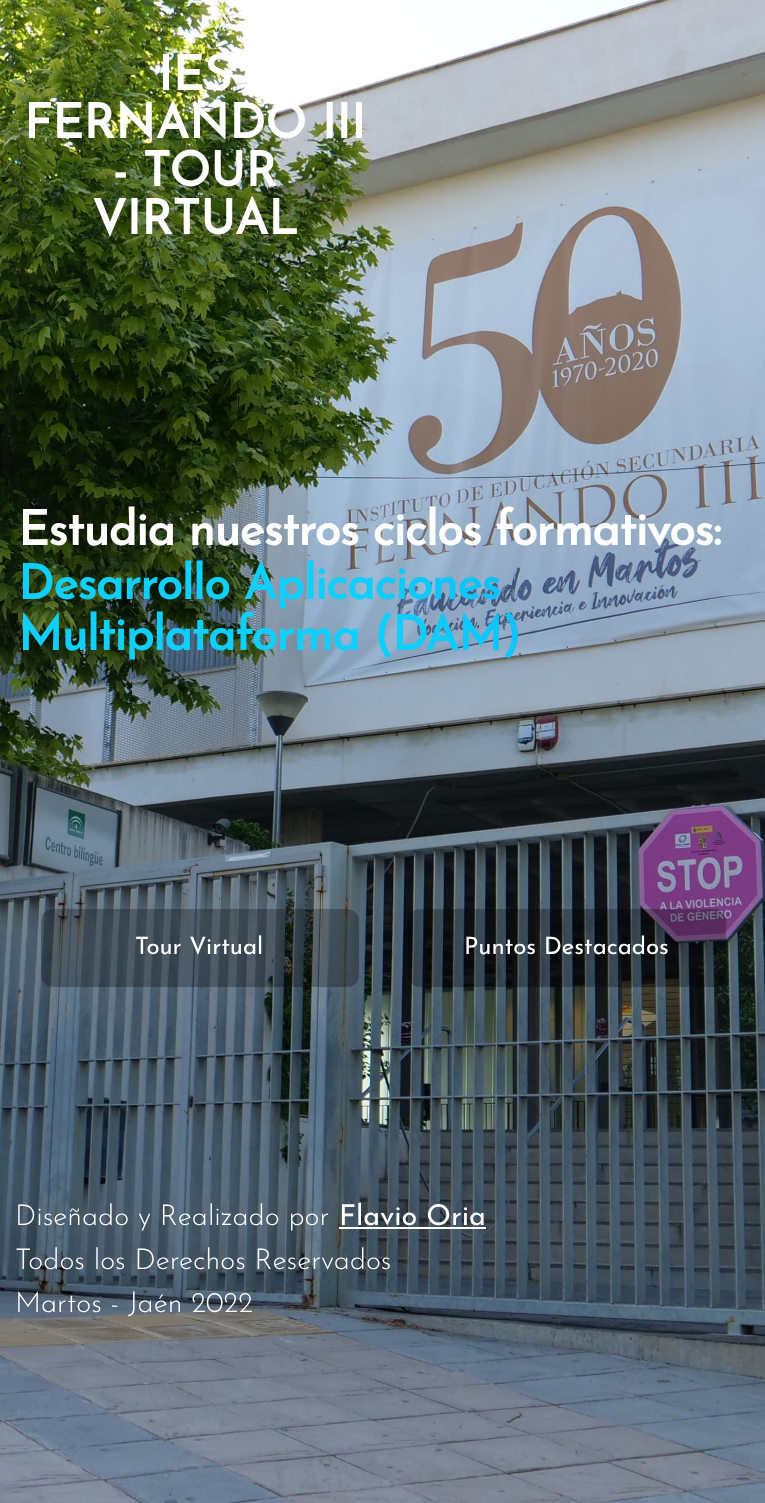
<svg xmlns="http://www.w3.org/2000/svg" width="765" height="1503">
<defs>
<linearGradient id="g1" gradientUnits="userSpaceOnUse" x1="175" y1="821" x2="590" y2="406"><stop offset="0.5" stop-color="#0ecffe"/><stop offset="1" stop-color="#07a6f1"/></linearGradient>
</defs>
<rect width="100%" height="100%" fill="#fff"/>
<image x="0" y="0" width="765" height="1503" href="media/1.png"/>
<text x="158" y="90" style="font-family:Josefin Sans;font-size:48px;font-weight:bold;fill:#fff">IES</text>
<text x="24" y="138" style="font-family:Josefin Sans;font-size:48px;font-weight:bold;fill:#fff">FERNANDO III</text>
<text x="113" y="186" style="font-family:Josefin Sans;font-size:48px;font-weight:bold;fill:#fff">- TOUR</text>
<text x="92" y="234" style="font-family:Josefin Sans;font-size:48px;font-weight:bold;fill:#fff">VIRTUAL</text>
<text x="18" y="545" style="font-family:Josefin Sans;font-size:48px;font-weight:bold;letter-spacing:-0.95px;fill:#fff">Estudia nuestros ciclos formativos:</text>
<text x="18" y="599" style="font-family:Josefin Sans;font-size:48px;font-weight:bold;letter-spacing:-0.95px;fill:url(#g1)">Desarrollo Aplicaciones</text>
<text x="18" y="650" style="font-family:Josefin Sans;font-size:48px;font-weight:bold;letter-spacing:-0.95px;fill:url(#g1)">Multiplataforma (DAM)</text>
<rect x="41" y="909" width="318" height="78" rx="12" fill="#00000045"/>
<text x="135" y="954" style="font-family:Josefin Sans;font-size:24px;fill:#fff">Tour Virtual</text>
<rect x="408" y="909" width="318" height="78" rx="12" fill="#00000045"/>
<text x="464" y="954" style="font-family:Josefin Sans;font-size:24px;fill:#fff">Puntos Destacados</text>
<text x="15" y="1225" style="font-family:Josefin Sans;font-size:28.75px;font-weight:300;fill:#fff">Diseñado y Realizado por</text>
<text x="339" y="1225" style="font-family:Josefin Sans;font-size:28.75px;fill:#fff">Flavio Oria</text>
<rect x="339" y="1227" width="147" height="2" fill="#fff"/>
<text x="15" y="1269" style="font-family:Josefin Sans;font-size:28.75px;font-weight:300;fill:#fff">Todos los Derechos Reservados</text>
<text x="15" y="1312" style="font-family:Josefin Sans;font-size:28.75px;font-weight:300;fill:#fff">Martos - Jaén 2022</text>
</svg>
